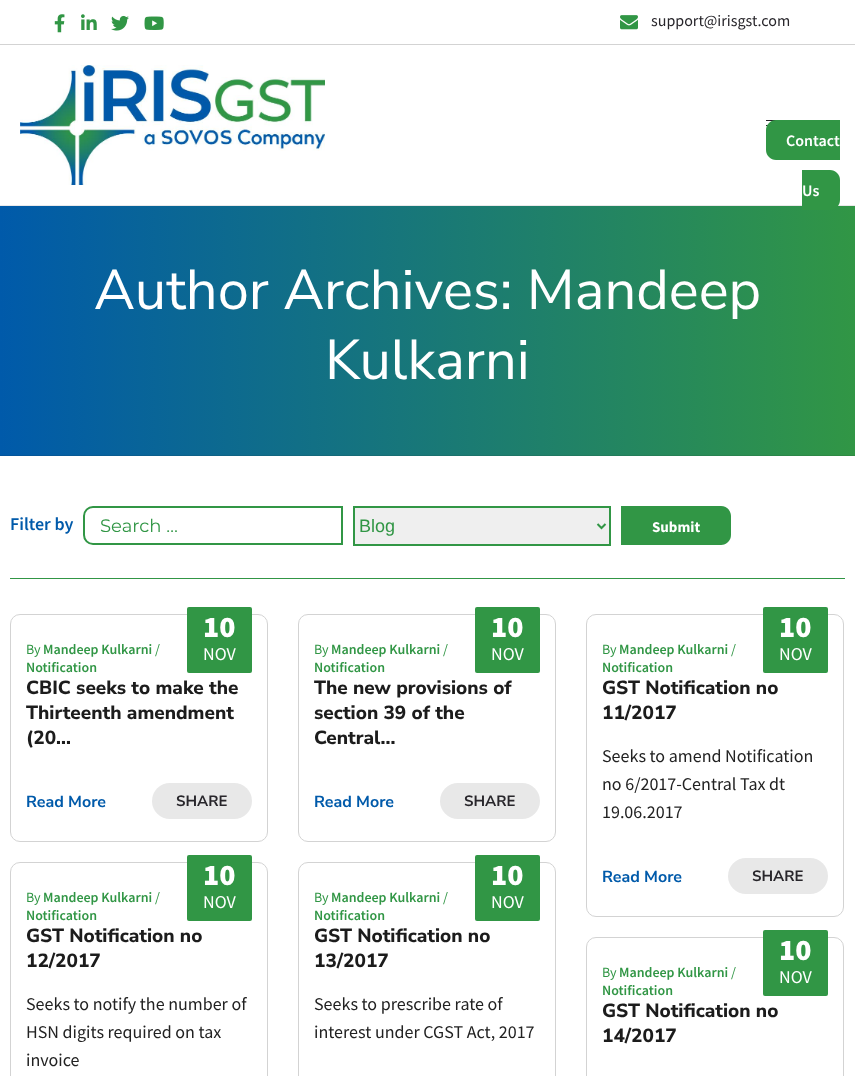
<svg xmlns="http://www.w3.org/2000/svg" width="855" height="1076">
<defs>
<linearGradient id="g1" gradientUnits="userSpaceOnUse" x1="0" y1="538" x2="855" y2="538"><stop offset="0" stop-color="#005aaa"/><stop offset="1" stop-color="#319645"/></linearGradient>
<linearGradient id="g2" gradientUnits="userSpaceOnUse" x1="0" y1="538" x2="855" y2="538"><stop offset="0" stop-color="#03549c"/><stop offset="1" stop-color="#2f8a41"/></linearGradient>
</defs>
<rect width="100%" height="100%" fill="#fff"/>
<rect y="205" width="855" height="1" fill="#eae9ea"/>
<rect y="44" width="855" height="1" fill="#d3d3d3"/>
<image x="54" y="14" width="11" height="19" href="media/1.png"/>
<image x="81" y="14" width="16" height="16" href="media/2.png"/>
<image x="111" y="15" width="18" height="16" href="media/3.png"/>
<image x="144" y="16" width="20" height="14" href="media/4.png"/>
<image x="620" y="15" width="18" height="15" href="media/5.png"/>
<text x="651" y="26" style="font-family:Source Sans Pro;font-size:16px;fill:#28262b">support@irisgst.com</text>
<image x="20" y="65" width="305" height="120" href="media/6.png"/>
<rect x="766" y="120" width="10" height="1" fill="#28262b"/>
<rect x="766" y="125" width="2" height="1" fill="#28262b"/>
<path d="M776 120h64v40h-64c-5.5 0-10-4.5-10-10v-20c0-5.5 4.5-10 10-10z" fill="#319645"/>
<text x="786" y="146" style="font-family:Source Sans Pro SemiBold;font-size:16px;font-weight:600;fill:#fff">Contact</text>
<rect y="206" width="855" height="249" fill="url(#g1)"/>
<path d="M802 170h28c5.5 0 10 4.5 10 10v20c0 5.5-4.5 10-10 10h-28z" fill="#319645"/>
<text x="802" y="196" style="font-family:Source Sans Pro SemiBold;font-size:16px;font-weight:600;fill:#fff">Us</text>
<rect y="455" width="855" height="1" fill="url(#g2)"/>
<text x="94" y="309" style="font-family:Nunito Sans;font-size:56px;fill:#fff">Author Archives: Mandeep</text>
<text x="325" y="379" style="font-family:Nunito Sans;font-size:56px;fill:#fff">Kulkarni</text>
<rect x="10" y="578" width="835" height="1" fill="#319645"/>
<text x="10" y="530" style="font-family:Source Sans Pro SemiBold;font-size:18px;font-weight:600;fill:#005aaa">Filter by</text>
<path d="M93 507h249v37h-249c-5 0-9-4-9-9v-19c0-5 4-9 9-9z" fill="none" stroke="#319645" stroke-width="2"/>
<text x="100" y="532" style="font-family:Montserrat;font-size:18px;fill:#319645">Search …</text>
<rect x="354" y="507" width="256" height="38" fill="#efefef" stroke="#319645" stroke-width="2"/>
<path d="M597.5 524l4 4l4-4" fill="none" stroke="#319645" stroke-width="2"/>
<text x="359" y="532" style="font-family:Liberation Sans;font-size:18px;fill:#319645">Blog</text>
<path d="M621 506h100c5.5 0 10 4.5 10 10v19c0 5.5-4.5 10-10 10h-100z" fill="#319645"/>
<text x="652" y="532" style="font-family:Source Sans Pro;font-size:15px;font-weight:bold;fill:#fff">Submit</text>
<rect x="10.5" y="614.5" width="257" height="227" rx="9.5" fill="none" stroke="#d3d3d3"/>
<text x="26" y="654" style="font-family:Source Sans Pro;font-size:14px;fill:#319645">By</text>
<text x="43" y="654" style="font-family:Source Sans Pro SemiBold;font-size:14px;font-weight:600;fill:#319645">Mandeep Kulkarni</text>
<text x="155" y="654" style="font-family:Source Sans Pro;font-size:14px;fill:#319645">/</text>
<text x="26" y="672" style="font-family:Source Sans Pro SemiBold;font-size:14px;font-weight:600;fill:#319645">Notification</text>
<rect x="187" y="607" width="65" height="66" rx="2" fill="#319645"/>
<text x="203" y="637" style="font-family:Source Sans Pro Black;font-size:30px;font-weight:900;fill:#fff">10</text>
<text x="203" y="660" style="font-family:Source Sans Pro;font-size:18px;fill:#fff">NOV</text>
<text x="26" y="694" style="font-family:Nunito Sans;font-size:19px;font-weight:800;fill:#1c1c1c">CBIC seeks to make the</text>
<text x="26" y="719" style="font-family:Nunito Sans;font-size:19px;font-weight:800;fill:#1c1c1c">Thirteenth amendment</text>
<text x="26" y="744" style="font-family:Nunito Sans;font-size:19px;font-weight:800;fill:#1c1c1c">(20...</text>
<text x="26" y="807" style="font-family:Nunito Sans;font-size:16px;font-weight:bold;fill:#005aaa">Read More</text>
<rect x="152" y="783" width="100" height="36" rx="18" fill="#e8e8e8"/>
<text x="176" y="806" style="font-family:Nunito Sans;font-size:15px;font-weight:bold;fill:#28262b">SHARE</text>
<rect x="298.5" y="614.5" width="257" height="227" rx="9.5" fill="none" stroke="#d3d3d3"/>
<text x="314" y="654" style="font-family:Source Sans Pro;font-size:14px;fill:#319645">By</text>
<text x="331" y="654" style="font-family:Source Sans Pro SemiBold;font-size:14px;font-weight:600;fill:#319645">Mandeep Kulkarni</text>
<text x="443" y="654" style="font-family:Source Sans Pro;font-size:14px;fill:#319645">/</text>
<text x="314" y="672" style="font-family:Source Sans Pro SemiBold;font-size:14px;font-weight:600;fill:#319645">Notification</text>
<rect x="475" y="607" width="65" height="66" rx="2" fill="#319645"/>
<text x="491" y="637" style="font-family:Source Sans Pro Black;font-size:30px;font-weight:900;fill:#fff">10</text>
<text x="491" y="660" style="font-family:Source Sans Pro;font-size:18px;fill:#fff">NOV</text>
<text x="314" y="694" style="font-family:Nunito Sans;font-size:19px;font-weight:800;fill:#1c1c1c">The new provisions of</text>
<text x="314" y="719" style="font-family:Nunito Sans;font-size:19px;font-weight:800;fill:#1c1c1c">section 39 of the</text>
<text x="314" y="744" style="font-family:Nunito Sans;font-size:19px;font-weight:800;fill:#1c1c1c">Central...</text>
<text x="314" y="807" style="font-family:Nunito Sans;font-size:16px;font-weight:bold;fill:#005aaa">Read More</text>
<rect x="440" y="783" width="100" height="36" rx="18" fill="#e8e8e8"/>
<text x="464" y="806" style="font-family:Nunito Sans;font-size:15px;font-weight:bold;fill:#28262b">SHARE</text>
<rect x="586.5" y="614.5" width="257" height="302" rx="9.5" fill="none" stroke="#d3d3d3"/>
<text x="602" y="654" style="font-family:Source Sans Pro;font-size:14px;fill:#319645">By</text>
<text x="619" y="654" style="font-family:Source Sans Pro SemiBold;font-size:14px;font-weight:600;fill:#319645">Mandeep Kulkarni</text>
<text x="731" y="654" style="font-family:Source Sans Pro;font-size:14px;fill:#319645">/</text>
<text x="602" y="672" style="font-family:Source Sans Pro SemiBold;font-size:14px;font-weight:600;fill:#319645">Notification</text>
<rect x="763" y="607" width="65" height="66" rx="2" fill="#319645"/>
<text x="779" y="637" style="font-family:Source Sans Pro Black;font-size:30px;font-weight:900;fill:#fff">10</text>
<text x="779" y="660" style="font-family:Source Sans Pro;font-size:18px;fill:#fff">NOV</text>
<text x="602" y="694" style="font-family:Nunito Sans;font-size:19px;font-weight:800;fill:#1c1c1c">GST Notification no</text>
<text x="602" y="719" style="font-family:Nunito Sans;font-size:19px;font-weight:800;fill:#1c1c1c">11/2017</text>
<text x="602" y="762" style="font-family:Source Sans Pro;font-size:18px;fill:#222">Seeks to amend Notification</text>
<text x="602" y="790" style="font-family:Source Sans Pro;font-size:18px;fill:#222">no 6/2017-Central Tax dt</text>
<text x="602" y="818" style="font-family:Source Sans Pro;font-size:18px;fill:#222">19.06.2017</text>
<text x="602" y="882" style="font-family:Nunito Sans;font-size:16px;font-weight:bold;fill:#005aaa">Read More</text>
<rect x="728" y="858" width="100" height="36" rx="18" fill="#e8e8e8"/>
<text x="752" y="881" style="font-family:Nunito Sans;font-size:15px;font-weight:bold;fill:#28262b">SHARE</text>
<rect x="10.5" y="862.5" width="257" height="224" rx="9.5" fill="none" stroke="#d3d3d3"/>
<text x="26" y="902" style="font-family:Source Sans Pro;font-size:14px;fill:#319645">By</text>
<text x="43" y="902" style="font-family:Source Sans Pro SemiBold;font-size:14px;font-weight:600;fill:#319645">Mandeep Kulkarni</text>
<text x="155" y="902" style="font-family:Source Sans Pro;font-size:14px;fill:#319645">/</text>
<text x="26" y="920" style="font-family:Source Sans Pro SemiBold;font-size:14px;font-weight:600;fill:#319645">Notification</text>
<rect x="187" y="855" width="65" height="66" rx="2" fill="#319645"/>
<text x="203" y="885" style="font-family:Source Sans Pro Black;font-size:30px;font-weight:900;fill:#fff">10</text>
<text x="203" y="908" style="font-family:Source Sans Pro;font-size:18px;fill:#fff">NOV</text>
<text x="26" y="942" style="font-family:Nunito Sans;font-size:19px;font-weight:800;fill:#1c1c1c">GST Notification no</text>
<text x="26" y="967" style="font-family:Nunito Sans;font-size:19px;font-weight:800;fill:#1c1c1c">12/2017</text>
<text x="26" y="1010" style="font-family:Source Sans Pro;font-size:18px;fill:#222">Seeks to notify the number of</text>
<text x="26" y="1038" style="font-family:Source Sans Pro;font-size:18px;fill:#222">HSN digits required on tax</text>
<text x="26" y="1066" style="font-family:Source Sans Pro;font-size:18px;fill:#222">invoice</text>
<rect x="298.5" y="862.5" width="257" height="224" rx="9.5" fill="none" stroke="#d3d3d3"/>
<text x="314" y="902" style="font-family:Source Sans Pro;font-size:14px;fill:#319645">By</text>
<text x="331" y="902" style="font-family:Source Sans Pro SemiBold;font-size:14px;font-weight:600;fill:#319645">Mandeep Kulkarni</text>
<text x="443" y="902" style="font-family:Source Sans Pro;font-size:14px;fill:#319645">/</text>
<text x="314" y="920" style="font-family:Source Sans Pro SemiBold;font-size:14px;font-weight:600;fill:#319645">Notification</text>
<rect x="475" y="855" width="65" height="66" rx="2" fill="#319645"/>
<text x="491" y="885" style="font-family:Source Sans Pro Black;font-size:30px;font-weight:900;fill:#fff">10</text>
<text x="491" y="908" style="font-family:Source Sans Pro;font-size:18px;fill:#fff">NOV</text>
<text x="314" y="942" style="font-family:Nunito Sans;font-size:19px;font-weight:800;fill:#1c1c1c">GST Notification no</text>
<text x="314" y="967" style="font-family:Nunito Sans;font-size:19px;font-weight:800;fill:#1c1c1c">13/2017</text>
<text x="314" y="1010" style="font-family:Source Sans Pro;font-size:18px;fill:#222">Seeks to prescribe rate of</text>
<text x="314" y="1038" style="font-family:Source Sans Pro;font-size:18px;fill:#222">interest under CGST Act, 2017</text>
<rect x="586.5" y="937.5" width="257" height="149" rx="9.5" fill="none" stroke="#d3d3d3"/>
<text x="602" y="977" style="font-family:Source Sans Pro;font-size:14px;fill:#319645">By</text>
<text x="619" y="977" style="font-family:Source Sans Pro SemiBold;font-size:14px;font-weight:600;fill:#319645">Mandeep Kulkarni</text>
<text x="731" y="977" style="font-family:Source Sans Pro;font-size:14px;fill:#319645">/</text>
<text x="602" y="995" style="font-family:Source Sans Pro SemiBold;font-size:14px;font-weight:600;fill:#319645">Notification</text>
<rect x="763" y="930" width="65" height="66" rx="2" fill="#319645"/>
<text x="779" y="960" style="font-family:Source Sans Pro Black;font-size:30px;font-weight:900;fill:#fff">10</text>
<text x="779" y="983" style="font-family:Source Sans Pro;font-size:18px;fill:#fff">NOV</text>
<text x="602" y="1017" style="font-family:Nunito Sans;font-size:19px;font-weight:800;fill:#1c1c1c">GST Notification no</text>
<text x="602" y="1042" style="font-family:Nunito Sans;font-size:19px;font-weight:800;fill:#1c1c1c">14/2017</text>
</svg>
